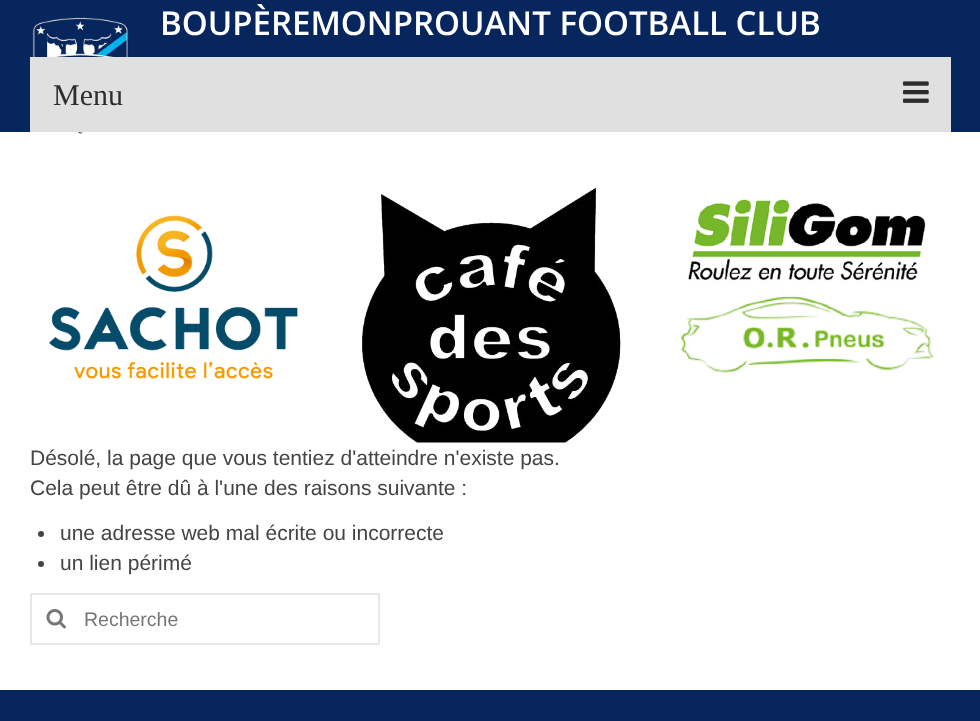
<svg xmlns="http://www.w3.org/2000/svg" width="980" height="721">
<rect width="100%" height="100%" fill="#07265d"/>
<rect y="132" width="980" height="558" fill="#fff"/>
<image x="32" y="17" width="97" height="117" href="media/1.png"/>
<text x="160" y="35" style="font-family:Open Sans;font-size:33px;font-weight:600;fill:#fff">BOUPÈREMONPROUANT FOOTBALL CLUB</text>
<rect x="30" y="57" width="921" height="75" fill="#e0e0e0"/>
<text x="53" y="105" style="font-family:Liberation Serif;font-size:30px;fill:#2d2d2d">Menu</text>
<image x="903" y="81" width="26" height="22" href="media/2.png"/>
<image x="49" y="215" width="249" height="164" href="media/3.png"/>
<image x="362" y="187" width="259" height="256" href="media/4.png"/>
<image x="680" y="199" width="254" height="175" href="media/5.png"/>
<text x="30" y="465" style="font-family:Liberation Sans;font-size:21px;fill:#444">Désolé, la page que vous tentiez d'atteindre n'existe pas.</text>
<text x="30" y="495" style="font-family:Liberation Sans;font-size:21px;fill:#444">Cela peut être dû à l'une des raisons suivante :</text>
<circle cx="41" cy="534" r="3" fill="#444"/>
<text x="60" y="540" style="font-family:Liberation Sans;font-size:21px;fill:#444">une adresse web mal écrite ou incorrecte</text>
<circle cx="41" cy="564" r="3" fill="#444"/>
<text x="60" y="570" style="font-family:Liberation Sans;font-size:21px;fill:#444">un lien périmé</text>
<rect x="31" y="594" width="348" height="50" fill="none" stroke="#e7e7e7" stroke-width="2"/>
<image x="46" y="609" width="20" height="20" href="media/6.png"/>
<text x="84" y="626" style="font-family:Liberation Sans;font-size:19.5px;fill:#757575">Recherche</text>
</svg>
